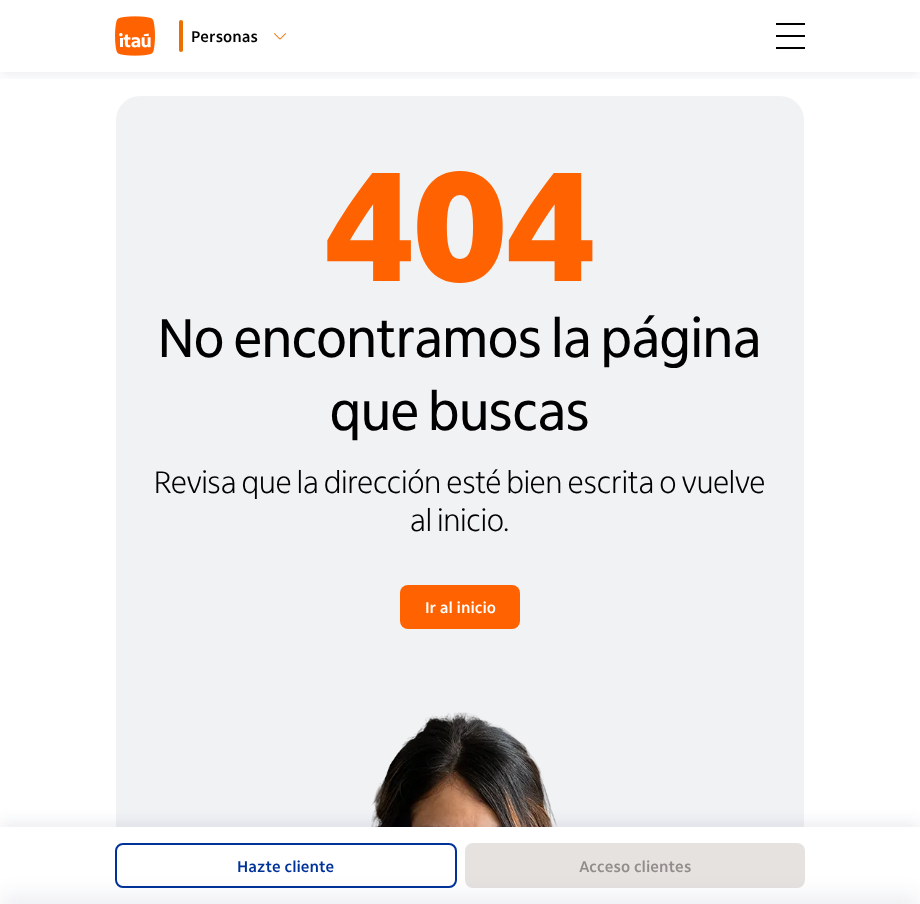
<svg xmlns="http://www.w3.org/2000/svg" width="920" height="904">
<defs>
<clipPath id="clip1"><rect x="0" y="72" width="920" height="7"/></clipPath>
</defs>
<rect width="100%" height="100%" fill="#fff"/>
<g clip-path="url(#clip1)">
<rect y="4" width="920" height="72" fill="#12195412" filter="blur(6px)"/>
</g>
<image x="115" y="16" width="40" height="40" href="media/1.png"/>
<rect x="179" y="20" width="4" height="32" rx="2" fill="#ec7000"/>
<text x="191" y="42" style="font-family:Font;font-size:16px;font-weight:bold;fill:#000">Personas</text>
<image x="274" y="33" width="12" height="7" href="media/2.png"/>
<rect x="776" y="23" width="29" height="2" fill="#000"/>
<rect x="776" y="35" width="29" height="2" fill="#000"/>
<rect x="776" y="47" width="29" height="2" fill="#000"/>
<rect x="116" y="96" width="688" height="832" rx="24" fill="#f1f2f4"/>
<image x="371" y="712" width="187" height="115" href="media/3.png"/>
<rect y="821" width="920" height="77" fill="#12195412" filter="blur(7px)"/>
<rect y="827" width="920" height="77" fill="#fff"/>
<rect x="116" y="844" width="340" height="43" rx="7" fill="none" stroke="#039" stroke-width="2"/>
<text x="237" y="872" style="font-family:Font;font-size:16px;font-weight:bold;fill:#039">Hazte cliente</text>
<rect x="465" y="843" width="340" height="45" rx="8" fill="#e6e2e0"/>
<text x="579" y="872" style="font-family:Font;font-size:16px;font-weight:bold;fill:#918d8b">Acceso clientes</text>
<rect y="895" width="920" height="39" fill="#12195412" filter="blur(10px)"/>
<text x="324" y="281" style="font-family:Font;font-size:160px;font-weight:800;fill:#ff6200">404</text>
<text x="158" y="357" style="font-family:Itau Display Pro;font-size:56px;fill:#000">No encontramos la página</text>
<text x="330" y="430" style="font-family:Itau Display Pro;font-size:56px;fill:#000">que buscas</text>
<text x="154" y="493" style="font-family:Itau Display Pro;font-size:32px;font-weight:300;fill:#000">Revisa que la dirección esté bien escrita o vuelve</text>
<text x="410" y="531" style="font-family:Itau Display Pro;font-size:32px;font-weight:300;fill:#000">al inicio.</text>
<rect x="400" y="585" width="120" height="44" rx="8" fill="#ff6200"/>
<text x="425" y="613" style="font-family:Font;font-size:16px;font-weight:bold;fill:#fff">Ir al inicio</text>
</svg>
